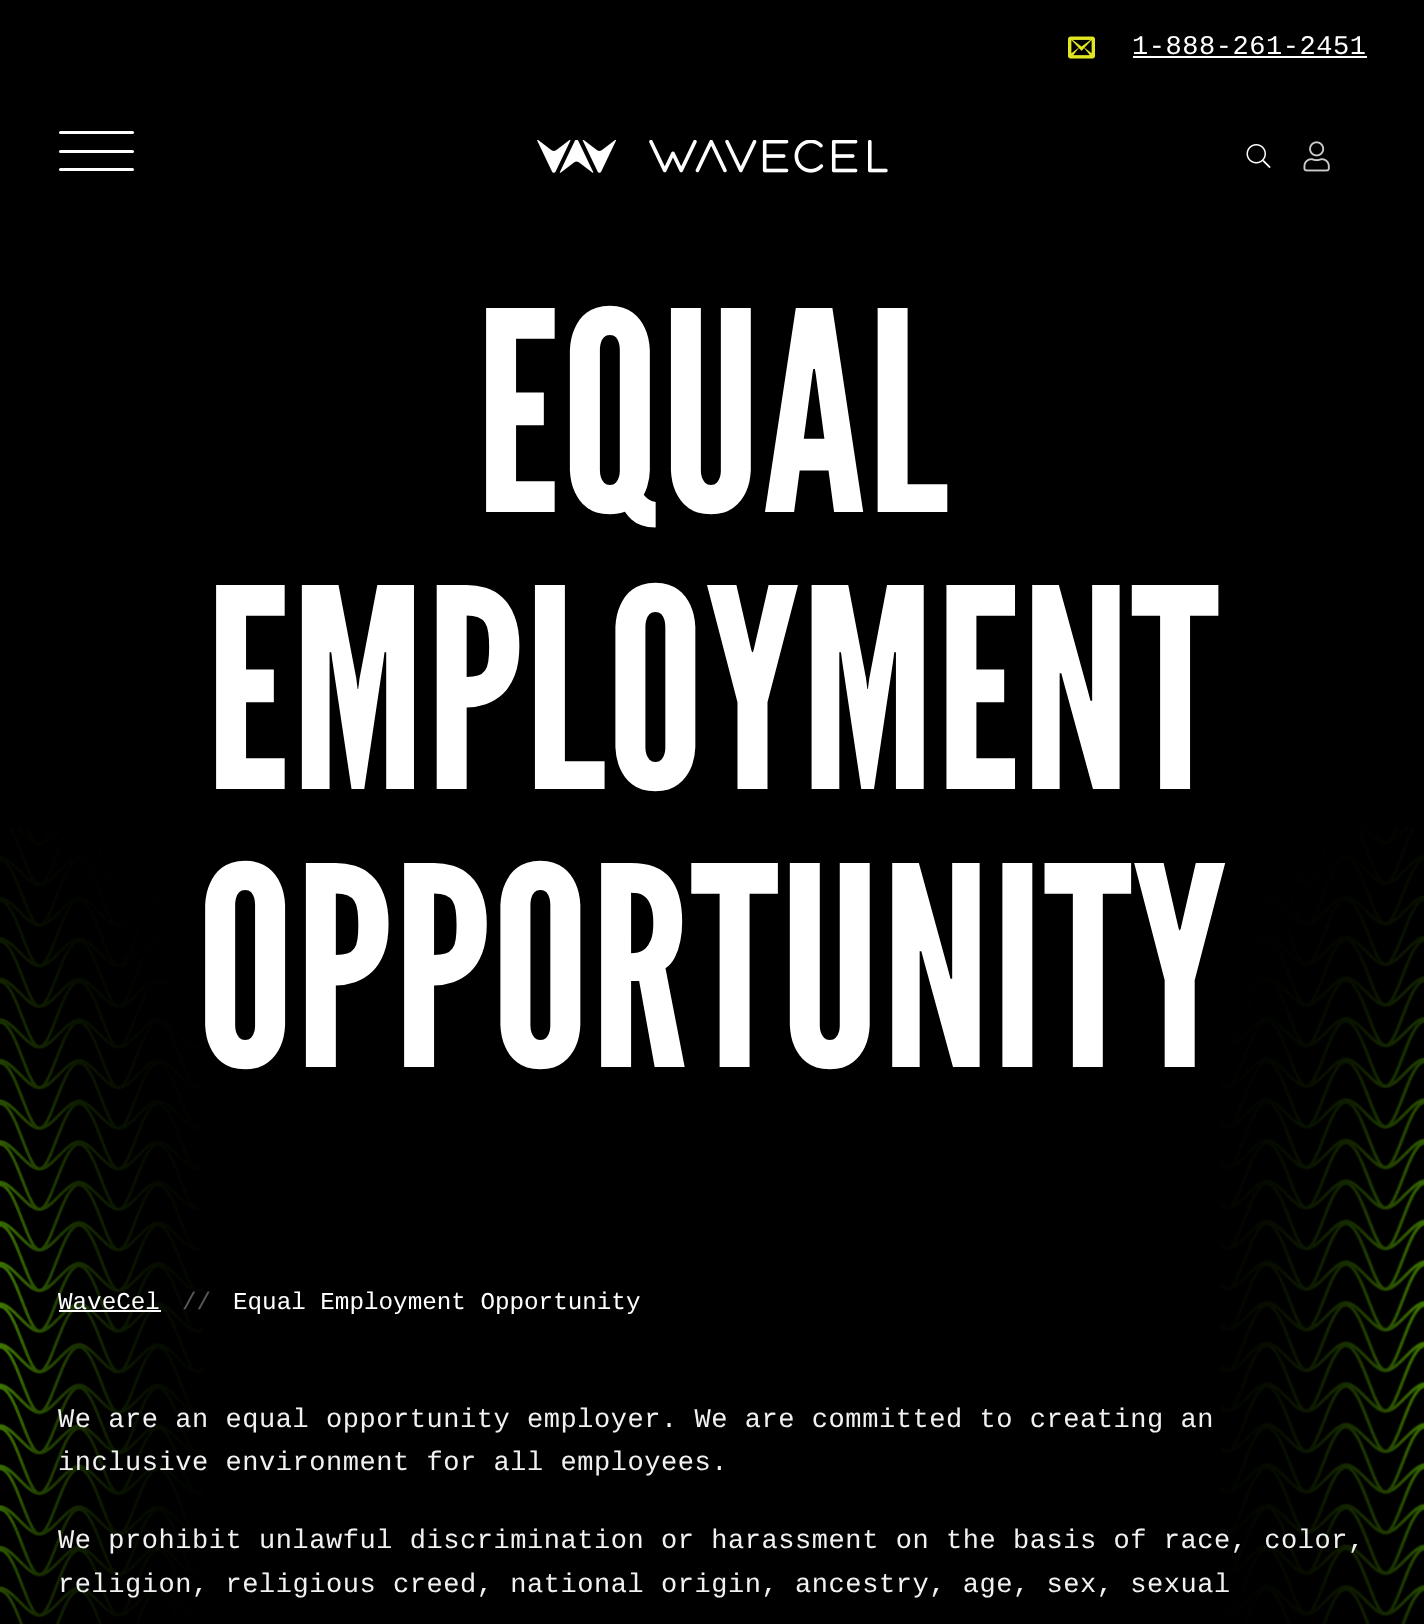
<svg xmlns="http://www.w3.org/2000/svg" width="1424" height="1624">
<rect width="100%" height="100%" fill="#000"/>
<image x="1068" y="36" width="27" height="23" href="media/1.png"/>
<text x="1132" y="54" style="font-family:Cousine;font-size:27px;letter-spacing:0.55px;fill:#fff">1-888-261-2451</text>
<rect x="1133" y="56" width="234" height="2" fill="#fff"/>
<rect x="59" y="131" width="75" height="3" rx="1.5" fill="#fff"/>
<rect x="59" y="150" width="75" height="3" rx="1.5" fill="#fff"/>
<rect x="59" y="168" width="75" height="3" rx="1.5" fill="#fff"/>
<image x="537" y="140" width="351" height="33" href="media/2.png"/>
<image x="1246" y="144" width="25" height="24" href="media/3.png"/>
<image x="1303" y="141" width="27" height="31" href="media/4.png"/>
<text x="475" y="512" style="font-family:League Gothic;font-size:277.5px;letter-spacing:0.55px;fill:#fff">EQUAL</text>
<text x="205" y="789" style="font-family:League Gothic;font-size:277.5px;letter-spacing:0.55px;fill:#fff">EMPLOYMENT</text>
<text x="196" y="1067" style="font-family:League Gothic;font-size:277.5px;letter-spacing:0.55px;fill:#fff">OPPORTUNITY</text>
<image x="0" y="828" width="203" height="796" href="media/5.png"/>
<image x="1221" y="827" width="203" height="797" href="media/6.png"/>
<text x="58" y="1309" style="font-family:Cousine;font-size:24.25px;fill:#fff">WaveCel</text>
<rect x="59" y="1310" width="102" height="2" fill="#fff"/>
<text x="182" y="1309" style="font-family:Cousine;font-size:24.25px;fill:#595959">//</text>
<text x="233" y="1309" style="font-family:Cousine;font-size:24.25px;fill:#fff">Equal Employment Opportunity</text>
<text x="58" y="1427" style="font-family:Cousine;font-size:27px;letter-spacing:0.55px;fill:#f1f1f1">We are an equal opportunity employer. We are committed to creating an</text>
<text x="58" y="1470" style="font-family:Cousine;font-size:27px;letter-spacing:0.55px;fill:#f1f1f1">inclusive environment for all employees.</text>
<text x="58" y="1548" style="font-family:Cousine;font-size:27px;letter-spacing:0.55px;fill:#f1f1f1">We prohibit unlawful discrimination or harassment on the basis of race, color,</text>
<text x="58" y="1592" style="font-family:Cousine;font-size:27px;letter-spacing:0.55px;fill:#f1f1f1">religion, religious creed, national origin, ancestry, age, sex, sexual</text>
</svg>
